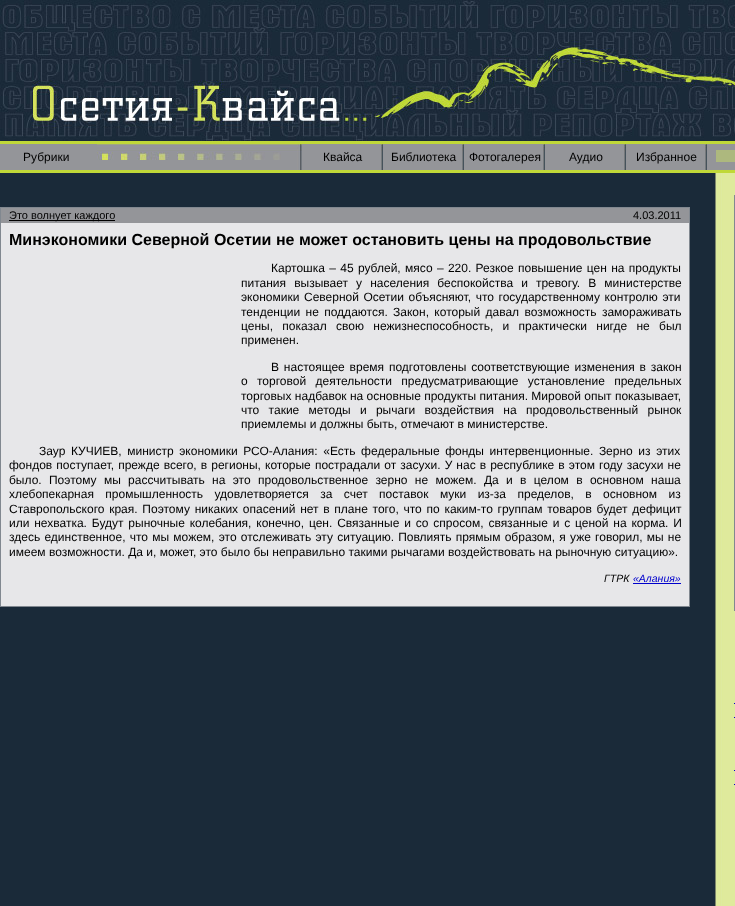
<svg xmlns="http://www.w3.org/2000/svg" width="735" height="906">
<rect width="100%" height="100%" fill="#1a2a39"/>
<image x="715" y="173" width="20" height="733" href="media/1.png"/>
<image x="0" y="0" width="735" height="141" href="media/2.png"/>
<rect y="144" width="735" height="26" fill="#949599"/>
<rect y="141" width="735" height="3" fill="#c0d838"/>
<rect y="170" width="735" height="3" fill="#c0d838"/>
<image x="97" y="144" width="205" height="26" href="media/3.png"/>
<text x="23" y="161" style="font-family:Liberation Sans;font-size:12px;fill:#000">Рубрики</text>
<image x="381" y="144" width="2" height="26" href="media/4.png"/>
<text x="323" y="161" style="font-family:Liberation Sans;font-size:12px;fill:#000">Квайса</text>
<image x="462" y="144" width="2" height="26" href="media/4.png"/>
<text x="391" y="161" style="font-family:Liberation Sans;font-size:12px;fill:#000">Библиотека</text>
<image x="543" y="144" width="2" height="26" href="media/4.png"/>
<text x="469" y="161" style="font-family:Liberation Sans;font-size:12px;fill:#000">Фотогалерея</text>
<image x="624" y="144" width="2" height="26" href="media/4.png"/>
<text x="569" y="161" style="font-family:Liberation Sans;font-size:12px;fill:#000">Аудио</text>
<image x="705" y="144" width="2" height="26" href="media/4.png"/>
<text x="636" y="161" style="font-family:Liberation Sans;font-size:12px;fill:#000">Избранное</text>
<rect x="716" y="150" width="19" height="12" fill="#adb87e"/>
<rect x="1" y="223" width="688" height="383" fill="#e7e7e9"/>
<rect x="0.5" y="207.5" width="689" height="399" fill="none" stroke="#818890"/>
<rect x="1" y="208" width="688" height="15" fill="#949599"/>
<rect x="9" y="220" width="106" height="1" fill="#000"/>
<text x="9" y="219" style="font-family:Liberation Sans;font-size:11px;fill:#000">Это волнует каждого</text>
<text x="633" y="219" style="font-family:Liberation Sans;font-size:11px;fill:#000">4.03.2011</text>
<text x="9" y="245" style="font-family:Liberation Sans;font-size:16px;font-weight:bold;fill:#000">Минэкономики Северной Осетии не может остановить цены на продовольствие</text>
<text x="271" y="272" word-spacing="1" style="font-family:Liberation Sans;font-size:12px;fill:#000">Картошка – 45 рублей, мясо – 220. Резкое повышение цен на продукты</text>
<text x="241" y="287" word-spacing="4.75" style="font-family:Liberation Sans;font-size:12px;fill:#000">питания вызывает у населения беспокойства и тревогу. В министерстве</text>
<text x="241" y="301" word-spacing="1.25" style="font-family:Liberation Sans;font-size:12px;fill:#000">экономики Северной Осетии объясняют, что государственному контролю эти</text>
<text x="241" y="316" word-spacing="2" style="font-family:Liberation Sans;font-size:12px;fill:#000">тенденции не поддаются. Закон, который давал возможность замораживать</text>
<text x="241" y="330" word-spacing="6" style="font-family:Liberation Sans;font-size:12px;fill:#000">цены, показал свою нежизнеспособность, и практически нигде не был</text>
<text x="241" y="344" style="font-family:Liberation Sans;font-size:12px;fill:#000">применен.</text>
<text x="271" y="371" word-spacing="1.5" style="font-family:Liberation Sans;font-size:12px;fill:#000">В настоящее время подготовлены соответствующие изменения в закон</text>
<text x="241" y="385" word-spacing="6" style="font-family:Liberation Sans;font-size:12px;fill:#000">о торговой деятельности предусматривающие установление предельных</text>
<text x="241" y="400" style="font-family:Liberation Sans;font-size:12px;fill:#000">торговых надбавок на основные продукты питания. Мировой опыт показывает,</text>
<text x="241" y="414" word-spacing="6" style="font-family:Liberation Sans;font-size:12px;fill:#000">что такие методы и рычаги воздействия на продовольственный рынок</text>
<text x="241" y="428" style="font-family:Liberation Sans;font-size:12px;fill:#000">приемлемы и должны быть, отмечают в министерстве.</text>
<text x="39" y="455" word-spacing="2.25" style="font-family:Liberation Sans;font-size:12px;fill:#000">Заур КУЧИЕВ, министр экономики РСО-Алания: «Есть федеральные фонды интервенционные. Зерно из этих</text>
<text x="9" y="469" word-spacing="0.75" style="font-family:Liberation Sans;font-size:12px;fill:#000">фондов поступает, прежде всего, в регионы, которые пострадали от засухи. У нас в республике в этом году засухи не</text>
<text x="9" y="484" word-spacing="4" style="font-family:Liberation Sans;font-size:12px;fill:#000">было. Поэтому мы рассчитывать на это продовольственное зерно не можем. Да и в целом в основном наша</text>
<text x="9" y="498" word-spacing="8.1" style="font-family:Liberation Sans;font-size:12px;fill:#000">хлебопекарная промышленность удовлетворяется за счет поставок муки из-за пределов, в основном из</text>
<text x="9" y="513" word-spacing="1.4" style="font-family:Liberation Sans;font-size:12px;fill:#000">Ставропольского края. Поэтому никаких опасений нет в плане того, что по каким-то группам товаров будет дефицит</text>
<text x="9" y="527" word-spacing="1.5" style="font-family:Liberation Sans;font-size:12px;fill:#000">или нехватка. Будут рыночные колебания, конечно, цен. Связанные и со спросом, связанные и с ценой на корма. И</text>
<text x="9" y="541" word-spacing="0.9" style="font-family:Liberation Sans;font-size:12px;fill:#000">здесь единственное, что мы можем, это отслеживать эту ситуацию. Повлиять прямым образом, я уже говорил, мы не</text>
<text x="9" y="556" style="font-family:Liberation Sans;font-size:12px;fill:#000">имеем возможности. Да и, может, это было бы неправильно такими рычагами воздействовать на рыночную ситуацию».</text>
<text x="604" y="582" style="font-family:Liberation Sans;font-size:10.5px;font-style:italic;fill:#000">ГТРК</text>
<text x="633" y="582" style="font-family:Liberation Sans;font-size:10.5px;font-style:italic;fill:#00c">«Алания»</text>
<rect x="633" y="583" width="48" height="1" fill="#00c"/>
<rect x="734.5" y="195.5" width="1" height="415" fill="none" stroke="#818890"/>
<rect x="734" y="703" width="1" height="1" fill="#00c"/>
<rect x="734" y="717" width="1" height="1" fill="#00c"/>
<rect x="734" y="770" width="1" height="1" fill="#00c"/>
<rect x="734" y="784" width="1" height="1" fill="#00c"/>
</svg>
